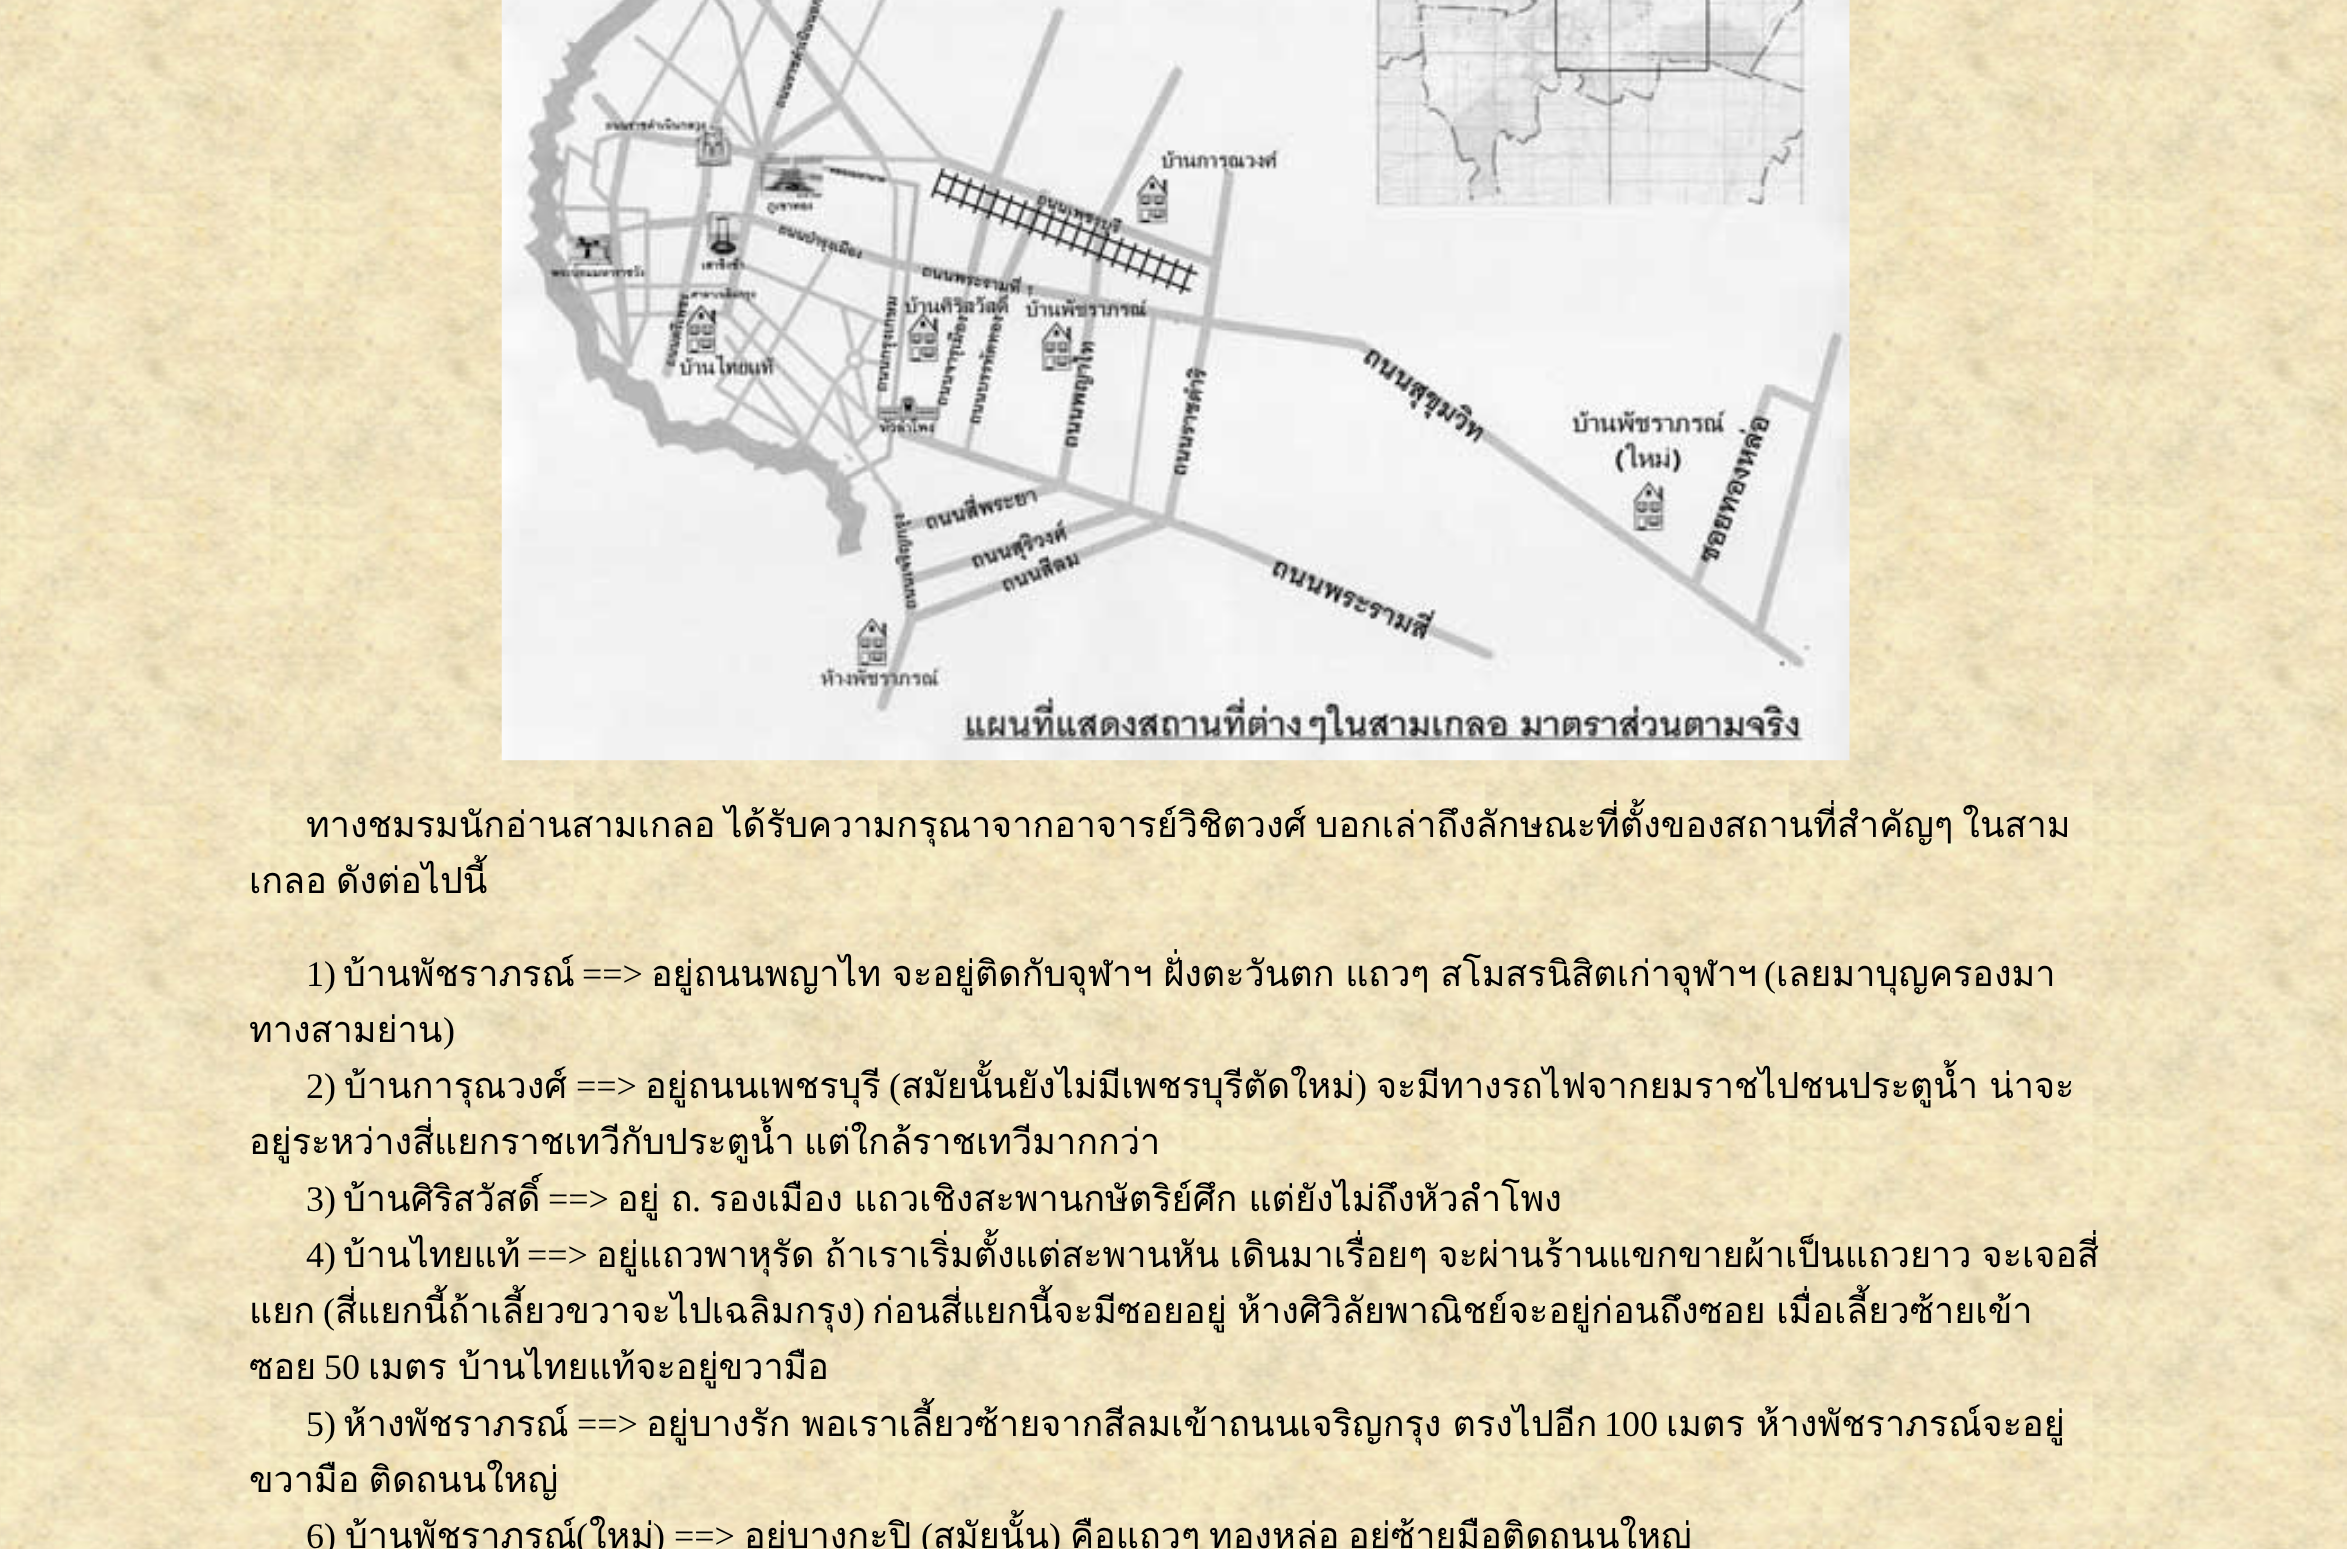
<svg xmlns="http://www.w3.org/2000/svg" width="2347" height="1549">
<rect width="100%" height="100%" fill="#fff"/>
<image x="0" y="0" width="2347" height="1549" href="media/1.png"/>
<image x="501" y="0" width="1349" height="761" href="media/2.png"/>
<text x="306" y="837" word-spacing="-3" style="font-family:Loma;font-size:36px;fill:#000">ทางชมรมนักอ่านสามเกลอ ได้รับความกรุณาจากอาจารย์วิชิตวงศ์ บอกเล่าถึงลักษณะที่ตั้งของสถานที่สำคัญๆ ในสาม</text>
<text x="249" y="893" word-spacing="-3" style="font-family:Loma;font-size:36px;fill:#000">เกลอ ดังต่อไปนี้</text>
<text x="306" y="986" style="font-family:Liberation Serif;font-size:36px;fill:#000">1)</text>
<text x="343" y="986" style="font-family:Loma;font-size:36px;fill:#000">บ้านพัชราภรณ์</text>
<text x="582" y="986" style="font-family:Liberation Serif;font-size:36px;fill:#000">==&gt;</text>
<text x="651" y="986" word-spacing="-1.5" style="font-family:Loma;font-size:36px;fill:#000">อยู่ถนนพญาไท จะอยู่ติดกับจุฬาฯ ฝั่งตะวันตก แถวๆ สโมสรนิสิตเก่าจุฬาฯ</text>
<text x="1764" y="986" style="font-family:Liberation Serif;font-size:36px;fill:#000">(</text>
<text x="1776" y="986" style="font-family:Loma;font-size:36px;fill:#000">เลยมาบุญครองมา</text>
<text x="249" y="1042" style="font-family:Loma;font-size:36px;fill:#000">ทางสามย่าน</text>
<text x="443" y="1042" style="font-family:Liberation Serif;font-size:36px;fill:#000">)</text>
<text x="306" y="1098" style="font-family:Liberation Serif;font-size:36px;fill:#000">2)</text>
<text x="344" y="1098" style="font-family:Loma;font-size:36px;fill:#000">บ้านการุณวงศ์</text>
<text x="576" y="1098" style="font-family:Liberation Serif;font-size:36px;fill:#000">==&gt;</text>
<text x="645" y="1098" style="font-family:Loma;font-size:36px;fill:#000">อยู่ถนนเพชรบุรี</text>
<text x="889" y="1098" style="font-family:Liberation Serif;font-size:36px;fill:#000">(</text>
<text x="901" y="1098" style="font-family:Loma;font-size:36px;fill:#000">สมัยนั้นยังไม่มีเพชรบุรีตัดใหม่</text>
<text x="1355" y="1098" style="font-family:Liberation Serif;font-size:36px;fill:#000">)</text>
<text x="1376" y="1098" word-spacing="-1" style="font-family:Loma;font-size:36px;fill:#000">จะมีทางรถไฟจากยมราชไปชนประตูน้ำ น่าจะ</text>
<text x="249" y="1154" word-spacing="-3" style="font-family:Loma;font-size:36px;fill:#000">อยู่ระหว่างสี่แยกราชเทวีกับประตูน้ำ แต่ใกล้ราชเทวีมากกว่า</text>
<text x="306" y="1211" style="font-family:Liberation Serif;font-size:36px;fill:#000">3)</text>
<text x="343" y="1211" style="font-family:Loma;font-size:36px;fill:#000">บ้านศิริสวัสดิ์</text>
<text x="548" y="1211" style="font-family:Liberation Serif;font-size:36px;fill:#000">==&gt;</text>
<text x="617" y="1211" word-spacing="-1" style="font-family:Loma;font-size:36px;fill:#000">อยู่ ถ</text>
<text x="709" y="1211" word-spacing="-1" style="font-family:Loma;font-size:36px;fill:#000">รองเมือง แถวเชิงสะพานกษัตริย์ศึก แต่ยังไม่ถึงหัวลำโพง</text>
<text x="692" y="1211" style="font-family:Liberation Serif;font-size:36px;fill:#000">.</text>
<text x="306" y="1267" style="font-family:Liberation Serif;font-size:36px;fill:#000">4)</text>
<text x="343" y="1267" style="font-family:Loma;font-size:36px;fill:#000">บ้านไทยแท้</text>
<text x="527" y="1267" style="font-family:Liberation Serif;font-size:36px;fill:#000">==&gt;</text>
<text x="596" y="1267" word-spacing="-2" style="font-family:Loma;font-size:36px;fill:#000">อยู่แถวพาหุรัด ถ้าเราเริ่มตั้งแต่สะพานหัน เดินมาเรื่อยๆ จะผ่านร้านแขกขายผ้าเป็นแถวยาว จะเจอสี่</text>
<text x="323" y="1323" style="font-family:Liberation Serif;font-size:36px;fill:#000">(</text>
<text x="335" y="1323" style="font-family:Loma;font-size:36px;fill:#000">สี่แยกนี้ถ้าเลี้ยวขวาจะไปเฉลิมกรุง</text>
<text x="872" y="1323" word-spacing="-1.5" style="font-family:Loma;font-size:36px;fill:#000">ก่อนสี่แยกนี้จะมีซอยอยู่ ห้างศิวิลัยพาณิชย์จะอยู่ก่อนถึงซอย เมื่อเลี้ยวซ้ายเข้า</text>
<text x="249" y="1323" style="font-family:Loma;font-size:36px;fill:#000">แยก</text>
<text x="853" y="1323" style="font-family:Liberation Serif;font-size:36px;fill:#000">)</text>
<text x="249" y="1379" style="font-family:Loma;font-size:36px;fill:#000">ซอย</text>
<text x="324" y="1379" style="font-family:Liberation Serif;font-size:36px;fill:#000">50</text>
<text x="368" y="1379" word-spacing="-1" style="font-family:Loma;font-size:36px;fill:#000">เมตร บ้านไทยแท้จะอยู่ขวามือ</text>
<text x="306" y="1436" style="font-family:Liberation Serif;font-size:36px;fill:#000">5)</text>
<text x="343" y="1436" style="font-family:Loma;font-size:36px;fill:#000">ห้างพัชราภรณ์</text>
<text x="577" y="1436" style="font-family:Liberation Serif;font-size:36px;fill:#000">==&gt;</text>
<text x="646" y="1436" word-spacing="-1" style="font-family:Loma;font-size:36px;fill:#000">อยู่บางรัก พอเราเลี้ยวซ้ายจากสีลมเข้าถนนเจริญกรุง ตรงไปอีก</text>
<text x="1604" y="1436" style="font-family:Liberation Serif;font-size:36px;fill:#000">100</text>
<text x="1666" y="1436" word-spacing="-1" style="font-family:Loma;font-size:36px;fill:#000">เมตร ห้างพัชราภรณ์จะอยู่</text>
<text x="249" y="1492" word-spacing="-3" style="font-family:Loma;font-size:36px;fill:#000">ขวามือ ติดถนนใหญ่</text>
<text x="306" y="1548" style="font-family:Liberation Serif;font-size:36px;fill:#000">6)</text>
<text x="345" y="1548" style="font-family:Loma;font-size:36px;fill:#000">บ้านพัชราภรณ์ ใหม่</text>
<text x="744" y="1548" style="font-family:Loma;font-size:36px;fill:#000">อยู่บางกะปิ</text>
<text x="933" y="1548" style="font-family:Loma;font-size:36px;fill:#000">สมัยนั้น</text>
<text x="1049" y="1548" style="font-family:Liberation Serif;font-size:36px;fill:#000">)</text>
<text x="1070" y="1548" style="font-family:Loma;font-size:36px;fill:#000">คือแถวๆ</text>
<text x="1209" y="1548" style="font-family:Loma;font-size:36px;fill:#000">ทองหล่อ</text>
<text x="1348" y="1548" style="font-family:Loma;font-size:36px;fill:#000">อยู่ซ้ายมือติดถนนใหญ่</text>
<text x="576" y="1548" style="font-family:Liberation Serif;font-size:36px;fill:#000">(</text>
<text x="653" y="1548" style="font-family:Liberation Serif;font-size:36px;fill:#000">) ==&gt;</text>
<text x="921" y="1548" style="font-family:Liberation Serif;font-size:36px;fill:#000">(</text>
</svg>
